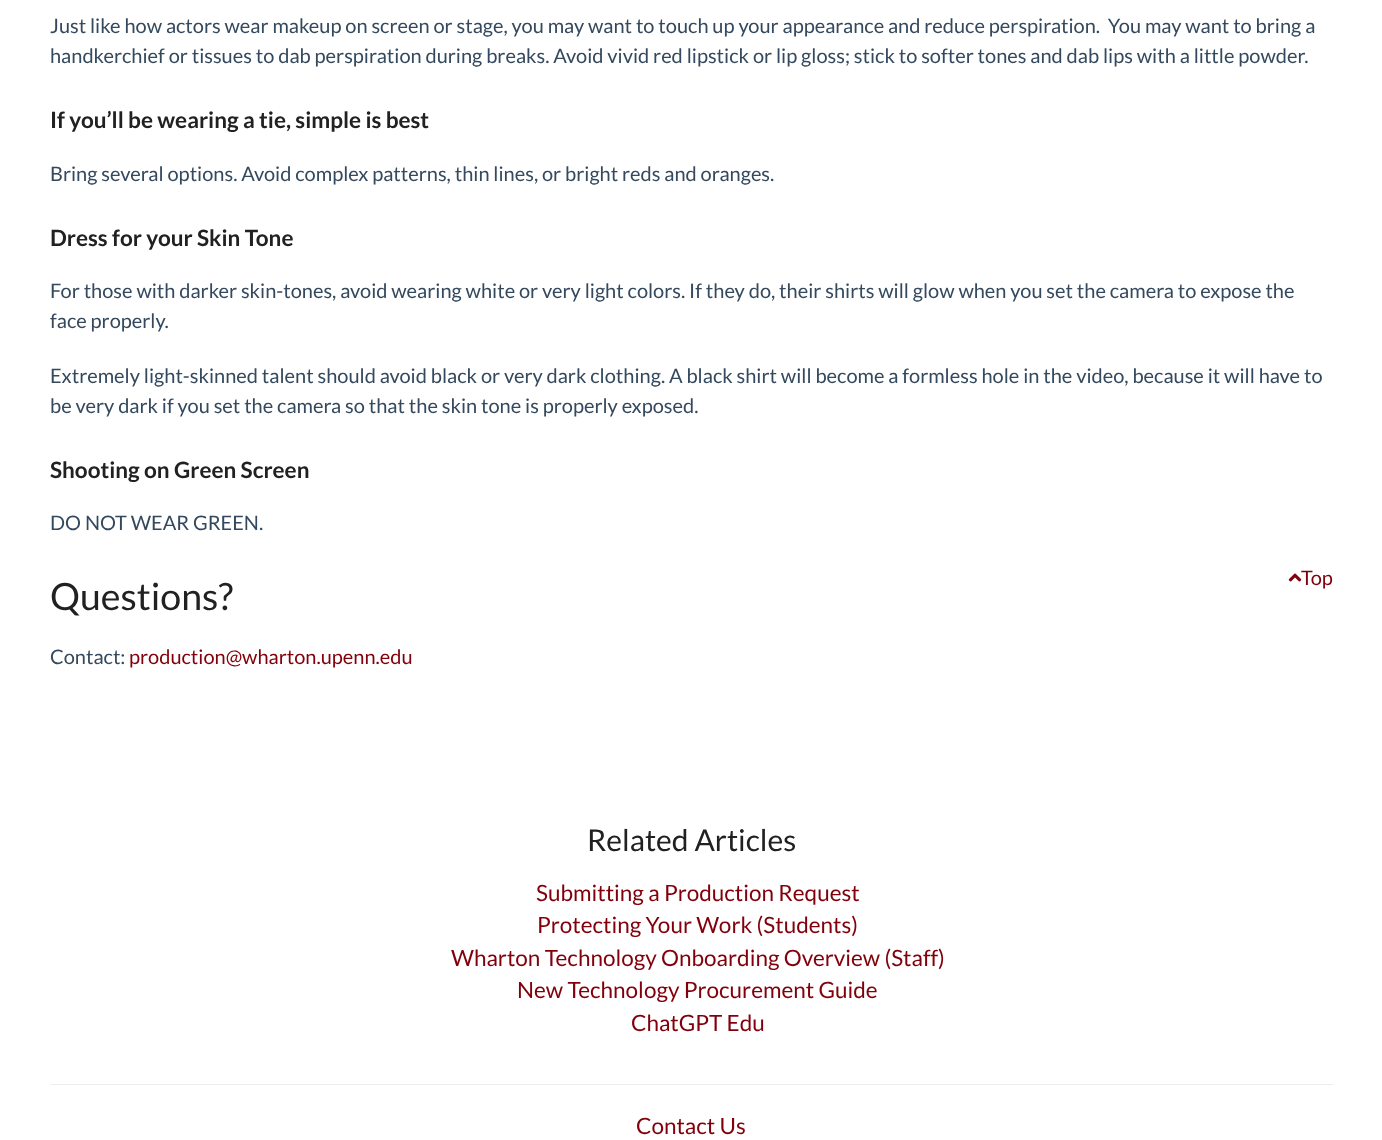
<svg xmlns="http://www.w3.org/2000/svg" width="1382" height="1140">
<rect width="100%" height="100%" fill="#fff"/>
<text x="50" y="33" style="font-family:Lato;font-size:20px;fill:#34495e" xml:space="preserve">Just like how actors wear makeup on screen or stage, you may want to touch up your appearance and reduce perspiration.  You may want to bring a</text>
<text x="50" y="63" style="font-family:Lato;font-size:20px;fill:#34495e">handkerchief or tissues to dab perspiration during breaks. Avoid vivid red lipstick or lip gloss; stick to softer tones and dab lips with a little powder.</text>
<text x="50" y="128" style="font-family:Lato;font-size:22.5px;font-weight:bold;fill:#212121">If you’ll be wearing a tie, simple is best</text>
<text x="50" y="181" style="font-family:Lato;font-size:20px;fill:#34495e">Bring several options. Avoid complex patterns, thin lines, or bright reds and oranges.</text>
<text x="50" y="246" style="font-family:Lato;font-size:22.5px;font-weight:bold;fill:#212121">Dress for your Skin Tone</text>
<text x="50" y="298" style="font-family:Lato;font-size:20px;fill:#34495e">For those with darker skin-tones, avoid wearing white or very light colors. If they do, their shirts will glow when you set the camera to expose the</text>
<text x="50" y="328" style="font-family:Lato;font-size:20px;fill:#34495e">face properly.</text>
<text x="50" y="383" style="font-family:Lato;font-size:20px;fill:#34495e">Extremely light-skinned talent should avoid black or very dark clothing. A black shirt will become a formless hole in the video, because it will have to</text>
<text x="50" y="413" style="font-family:Lato;font-size:20px;fill:#34495e">be very dark if you set the camera so that the skin tone is properly exposed.</text>
<text x="50" y="478" style="font-family:Lato;font-size:22.5px;font-weight:bold;fill:#212121">Shooting on Green Screen</text>
<text x="50" y="530" style="font-family:Lato;font-size:20px;fill:#34495e">DO NOT WEAR GREEN.</text>
<image x="1288" y="573" width="14" height="9" href="media/1.png"/>
<text x="1301" y="585" style="font-family:Lato;font-size:20px;fill:#81000b">Top</text>
<text x="50" y="610" style="font-family:Lato;font-size:37.5px;fill:#212121">Questions?</text>
<text x="50" y="664" style="font-family:Lato;font-size:20px;fill:#34495e">Contact:</text>
<text x="129" y="664" style="font-family:Lato;font-size:20px;fill:#81000b">production@wharton.upenn.edu</text>
<text x="587" y="851" style="font-family:Lato;font-size:30px;fill:#212121">Related Articles</text>
<text x="536" y="901" style="font-family:Lato;font-size:22.5px;fill:#81000b">Submitting a Production Request</text>
<text x="537" y="933" style="font-family:Lato;font-size:22.5px;fill:#81000b">Protecting Your Work (Students)</text>
<text x="451" y="966" style="font-family:Lato;font-size:22.5px;fill:#81000b">Wharton Technology Onboarding Overview (Staff)</text>
<text x="517" y="998" style="font-family:Lato;font-size:22.5px;fill:#81000b">New Technology Procurement Guide</text>
<text x="631" y="1031" style="font-family:Lato;font-size:22.5px;fill:#81000b">ChatGPT Edu</text>
<rect x="50" y="1084" width="1283" height="1" fill="#eee"/>
<text x="636" y="1134" style="font-family:Lato;font-size:22.5px;fill:#81000b">Contact Us</text>
</svg>
